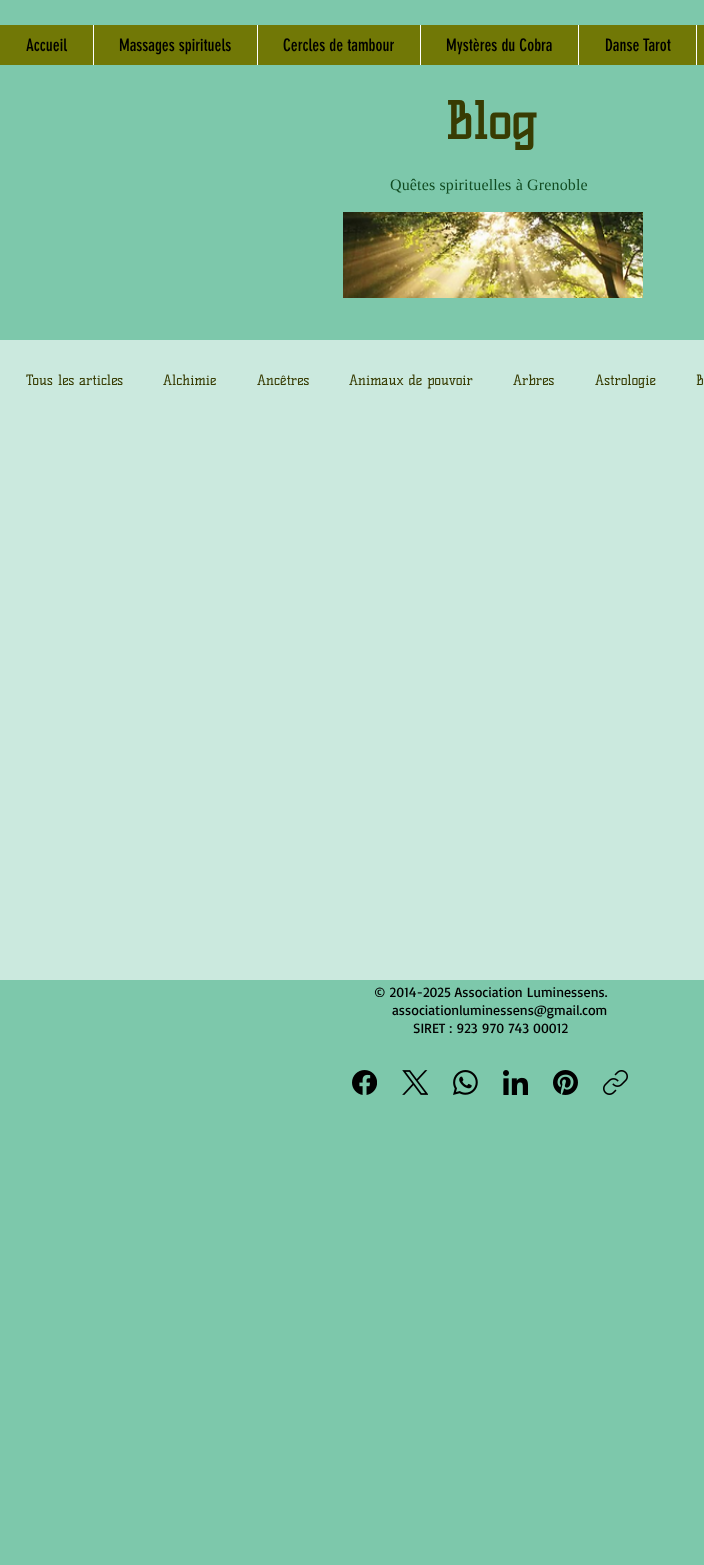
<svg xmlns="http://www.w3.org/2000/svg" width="704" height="1565">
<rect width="100%" height="100%" fill="#7dc8ab"/>
<rect y="25" width="704" height="40" fill="#717806"/>
<text x="26" y="51" style="font-family:'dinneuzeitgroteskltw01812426';font-size:17px;fill:#000">Accueil</text>
<rect x="93" y="25" width="1" height="40" fill="#fff"/>
<text x="119" y="51" style="font-family:'dinneuzeitgroteskltw01812426';font-size:17px;fill:#000">Massages spirituels</text>
<rect x="257" y="25" width="1" height="40" fill="#fff"/>
<text x="283" y="51" style="font-family:'dinneuzeitgroteskltw01812426';font-size:17px;fill:#000">Cercles de tambour</text>
<rect x="420" y="25" width="1" height="40" fill="#fff"/>
<text x="446" y="51" style="font-family:'dinneuzeitgroteskltw01812426';font-size:17px;fill:#000">Mystères du Cobra</text>
<rect x="578" y="25" width="1" height="40" fill="#fff"/>
<text x="605" y="51" style="font-family:'dinneuzeitgroteskltw01812426';font-size:17px;fill:#000">Danse Tarot</text>
<rect x="696" y="25" width="1" height="40" fill="#fff"/>
<text x="390" y="190" style="font-family:Liberation Serif;font-size:16px;letter-spacing:0.15px;fill:#114c22">Quêtes spirituelles à Grenoble</text>
<image x="343" y="212" width="300" height="86" href="media/1.png"/>
<text x="445" y="139" style="font-family:Kelly Slab;font-size:50px;font-weight:bold;fill:#383c03">Blog</text>
<rect y="340" width="704" height="640" fill="#cbe9de"/>
<text x="26" y="385" style="font-family:Kelly Slab;font-size:14px;fill:#383c03">Tous les articles</text>
<text x="163" y="385" style="font-family:Kelly Slab;font-size:14px;fill:#383c03">Alchimie</text>
<text x="257" y="385" style="font-family:Kelly Slab;font-size:14px;fill:#383c03">Ancêtres</text>
<text x="349" y="385" style="font-family:Kelly Slab;font-size:14px;fill:#383c03">Animaux de pouvoir</text>
<text x="513" y="385" style="font-family:Kelly Slab;font-size:14px;fill:#383c03">Arbres</text>
<text x="595" y="385" style="font-family:Kelly Slab;font-size:14px;fill:#383c03">Astrologie</text>
<text x="696" y="385" style="font-family:Kelly Slab;font-size:14px;fill:#383c03">B</text>
<text x="374" y="997" style="font-family:Basic;font-size:14px;fill:#000">© 2014-2025 Association Luminessens.</text>
<text x="392" y="1015" style="font-family:Basic;font-size:14px;fill:#000">associationluminessens@gmail.com</text>
<text x="413" y="1033" style="font-family:Basic;font-size:14px;fill:#000">SIRET : 923 970 743 00012</text>
<image x="352" y="1070" width="25" height="25" href="media/2.png"/>
<image x="402" y="1070" width="26" height="25" href="media/3.png"/>
<image x="453" y="1070" width="25" height="25" href="media/4.png"/>
<image x="503" y="1070" width="25" height="25" href="media/5.png"/>
<image x="553" y="1070" width="25" height="25" href="media/6.png"/>
<image x="603" y="1070" width="25" height="25" href="media/7.png"/>
</svg>
